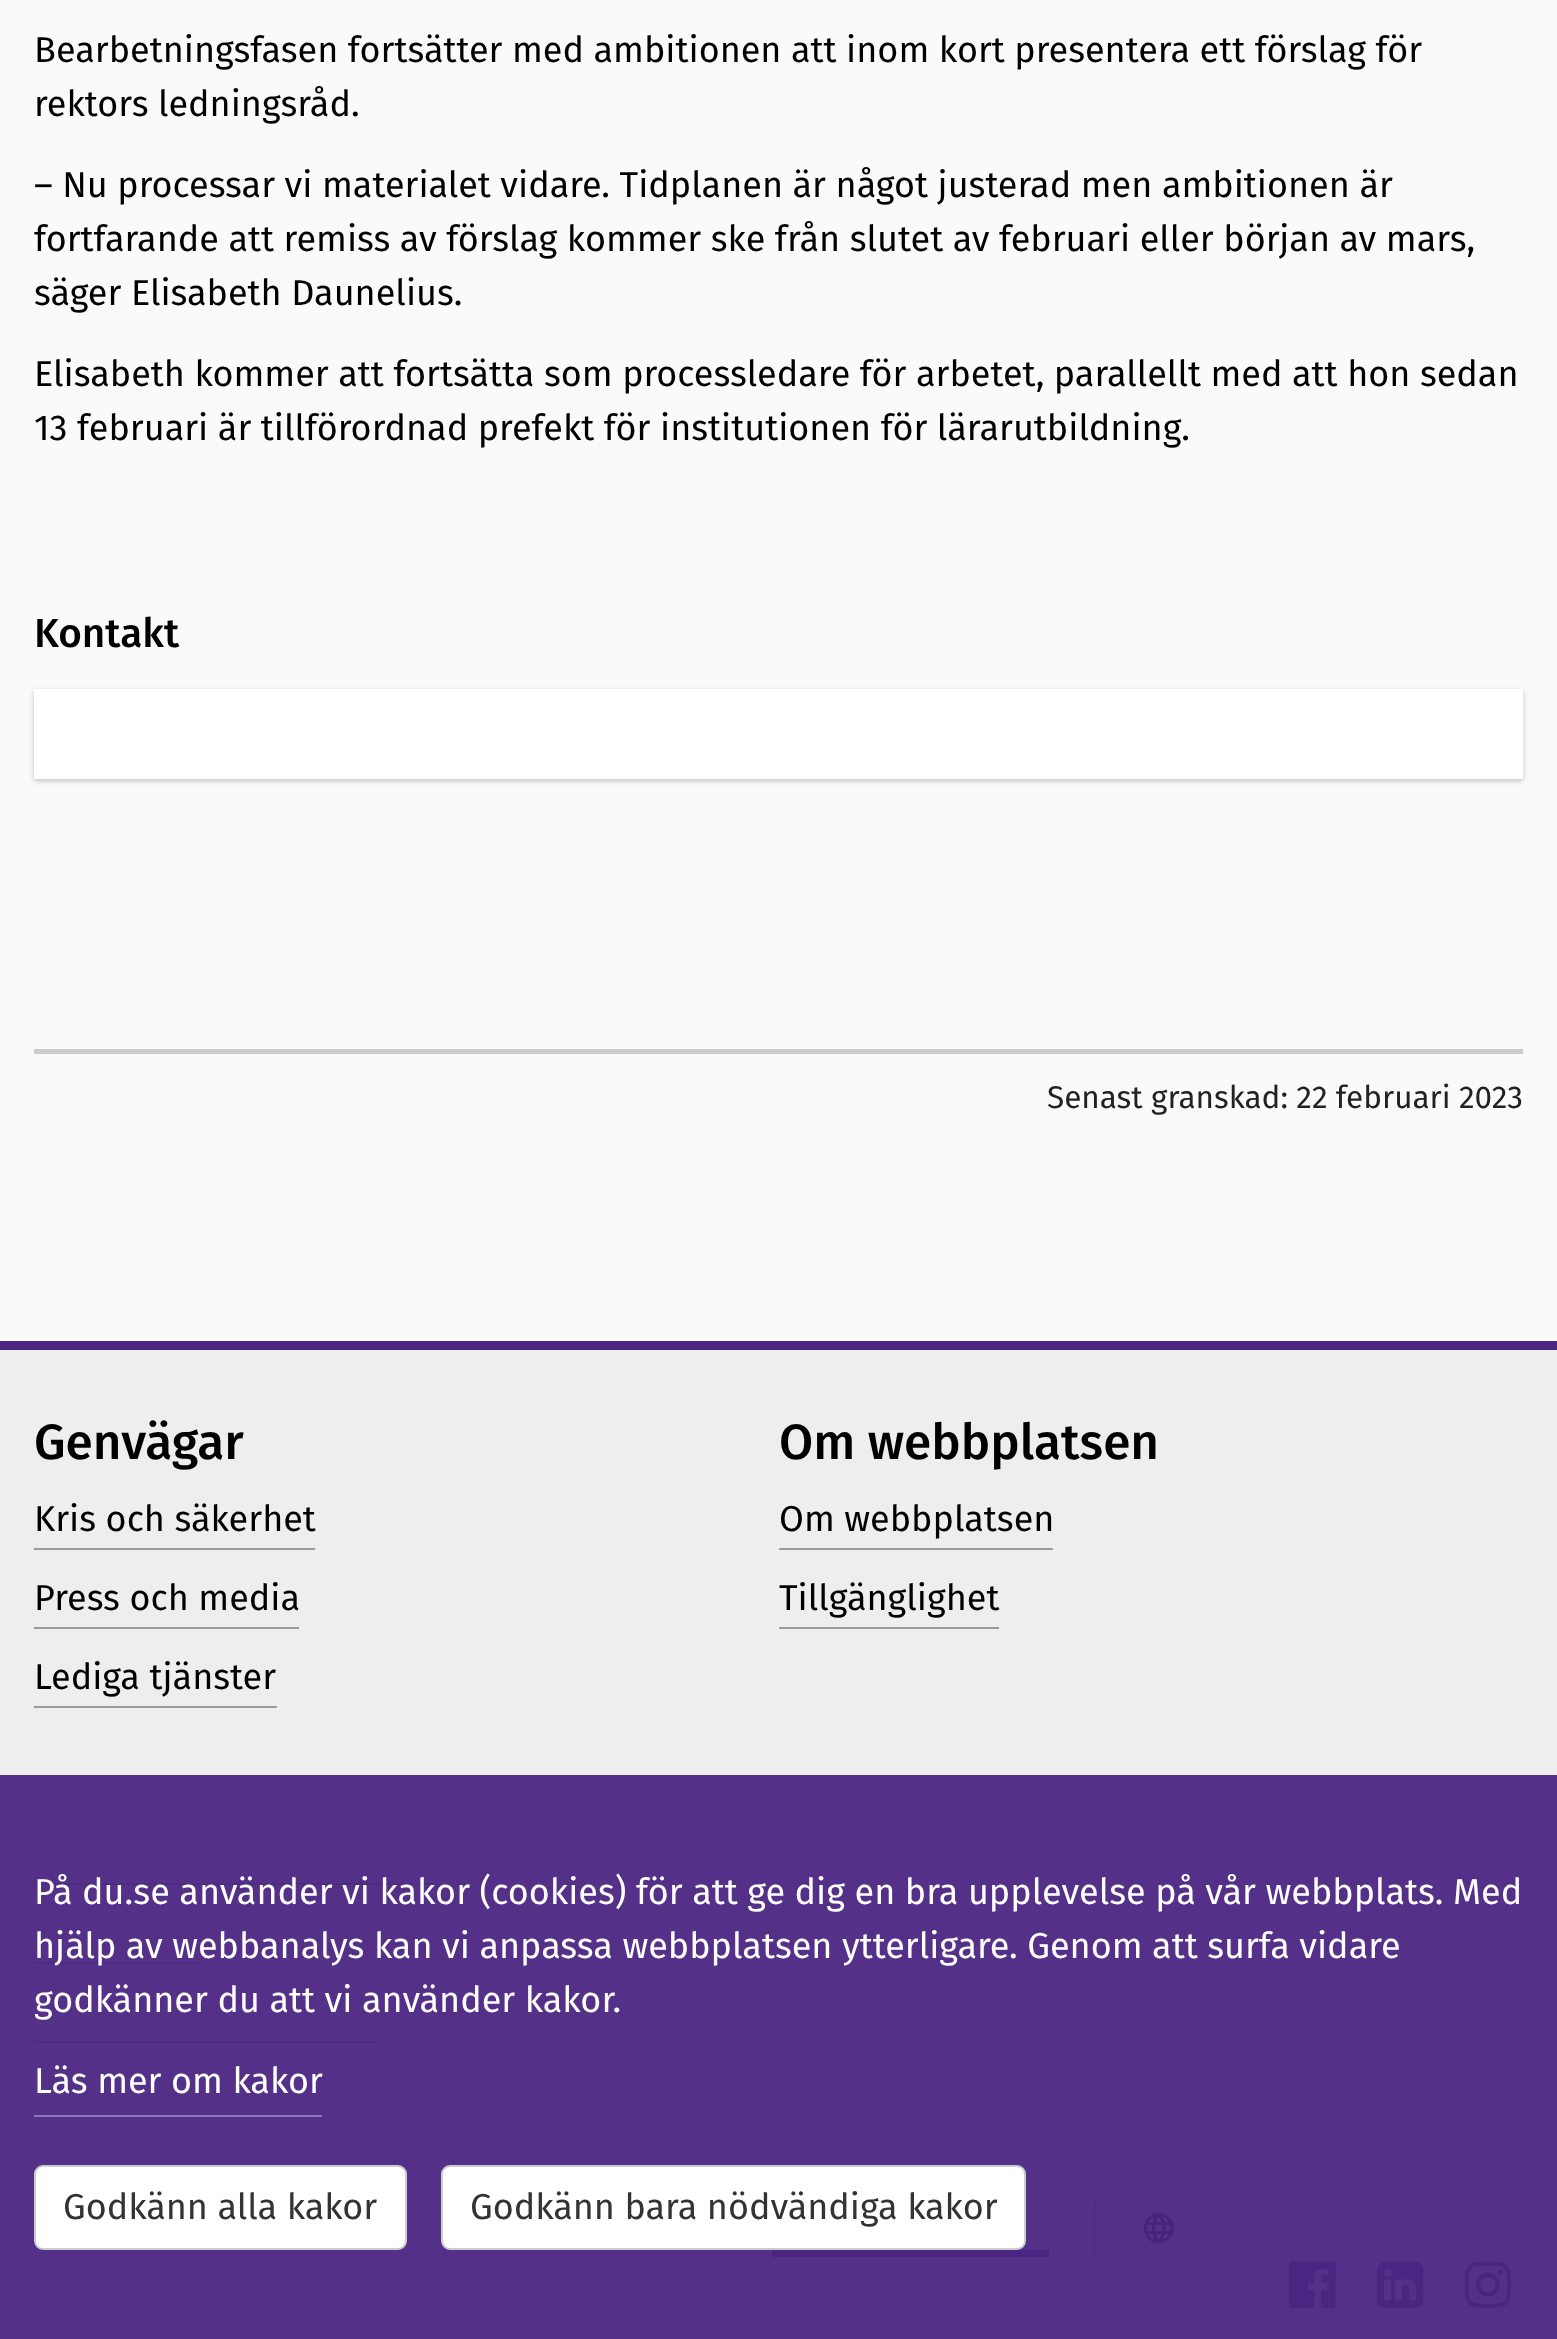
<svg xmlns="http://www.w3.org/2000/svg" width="1557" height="2339">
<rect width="100%" height="100%" fill="#fafafa"/>
<text x="34" y="62" style="font-family:Fira Sans;font-size:36px;fill:#000">Bearbetningsfasen fortsätter med ambitionen att inom kort presentera ett förslag för</text>
<text x="34" y="116" style="font-family:Fira Sans;font-size:36px;fill:#000">rektors ledningsråd.</text>
<text x="34" y="197" style="font-family:Fira Sans;font-size:36px;fill:#000">– Nu processar vi materialet vidare. Tidplanen är något justerad men ambitionen är</text>
<text x="34" y="251" style="font-family:Fira Sans;font-size:36px;fill:#000">fortfarande att remiss av förslag kommer ske från slutet av februari eller början av mars,</text>
<text x="34" y="305" style="font-family:Fira Sans;font-size:36px;fill:#000">säger Elisabeth Daunelius.</text>
<text x="34" y="386" style="font-family:Fira Sans;font-size:36px;fill:#000">Elisabeth kommer att fortsätta som processledare för arbetet, parallellt med att hon sedan</text>
<text x="34" y="440" style="font-family:Fira Sans;font-size:36px;fill:#000">13 februari är tillförordnad prefekt för institutionen för lärarutbildning.</text>
<text x="34" y="647" style="font-family:Fira Sans;font-size:40.5px;font-weight:500;fill:#000">Kontakt</text>
<rect x="34" y="691" width="1489" height="90" fill="#0000001a" filter="blur(2px)"/>
<rect x="34" y="691" width="1489" height="90" fill="#0000001f" filter="blur(3.5px)"/>
<rect x="34" y="689" width="1489" height="90" fill="#fff"/>
<rect x="34" y="1049" width="1489" height="5" fill="#ccc"/>
<text x="1047" y="1108" style="font-family:Fira Sans;font-size:31.5px;fill:#222">Senast granskad: 22 februari 2023</text>
<rect y="1341" width="1557" height="9" fill="#4b2582"/>
<rect y="1350" width="1557" height="783" fill="#eee"/>
<text x="34" y="1459" style="font-family:Fira Sans;font-size:49.5px;font-weight:500;fill:#000">Genvägar</text>
<rect x="34" y="1548" width="281" height="2" fill="#9b9b9b"/>
<text x="34" y="1531" style="font-family:Fira Sans;font-size:36px;fill:#000">Kris och säkerhet</text>
<rect x="34" y="1627" width="265" height="2" fill="#9b9b9b"/>
<text x="34" y="1610" style="font-family:Fira Sans;font-size:36px;fill:#000">Press och media</text>
<rect x="34" y="1706" width="243" height="2" fill="#9b9b9b"/>
<text x="34" y="1689" style="font-family:Fira Sans;font-size:36px;fill:#000">Lediga tjänster</text>
<text x="779" y="1459" style="font-family:Fira Sans;font-size:49.5px;font-weight:500;fill:#000">Om webbplatsen</text>
<rect x="779" y="1548" width="274" height="2" fill="#9b9b9b"/>
<text x="779" y="1531" style="font-family:Fira Sans;font-size:36px;fill:#000">Om webbplatsen</text>
<rect x="779" y="1627" width="220" height="2" fill="#9b9b9b"/>
<text x="779" y="1610" style="font-family:Fira Sans;font-size:36px;fill:#000">Tillgänglighet</text>
<rect x="34" y="1883" width="405" height="2" fill="#9b9b9b"/>
<rect x="34" y="1962" width="169" height="2" fill="#9b9b9b"/>
<rect x="34" y="2041" width="346" height="2" fill="#9b9b9b"/>
<rect x="1094" y="2201" width="2" height="56" fill="#bbb"/>
<rect x="772" y="2250" width="277" height="7" fill="#4b2582"/>
<image x="1143" y="2213" width="31" height="31" href="media/1.png"/>
<rect x="461" y="2250" width="2" height="7" fill="#bbb"/>
<image x="1289" y="2261" width="47" height="47" href="media/2.png"/>
<image x="1377" y="2261" width="47" height="47" href="media/3.png"/>
<image x="1464" y="2261" width="48" height="47" href="media/4.png"/>
<rect y="1775" width="1557" height="564" fill="#4b2582f2"/>
<text x="34" y="1904" style="font-family:Fira Sans;font-size:36px;fill:#fff">På du.se använder vi kakor (cookies) för att ge dig en bra upplevelse på vår webbplats. Med</text>
<text x="34" y="1958" style="font-family:Fira Sans;font-size:36px;fill:#fff">hjälp av webbanalys kan vi anpassa webbplatsen ytterligare. Genom att surfa vidare</text>
<text x="34" y="2012" style="font-family:Fira Sans;font-size:36px;fill:#fff">godkänner du att vi använder kakor.</text>
<text x="34" y="2093" style="font-family:Fira Sans;font-size:36px;fill:#fff">Läs mer om kakor</text>
<rect x="34" y="2115" width="288" height="2" fill="#8f78b1"/>
<rect x="35" y="2166" width="371" height="83" rx="8" fill="#fff" stroke="#ccc" stroke-width="2"/>
<text x="63" y="2219" style="font-family:Fira Sans;font-size:36px;fill:#333">Godkänn alla kakor</text>
<rect x="442" y="2166" width="583" height="83" rx="8" fill="#fff" stroke="#ccc" stroke-width="2"/>
<text x="470" y="2219" style="font-family:Fira Sans;font-size:36px;fill:#333">Godkänn bara nödvändiga kakor</text>
</svg>
